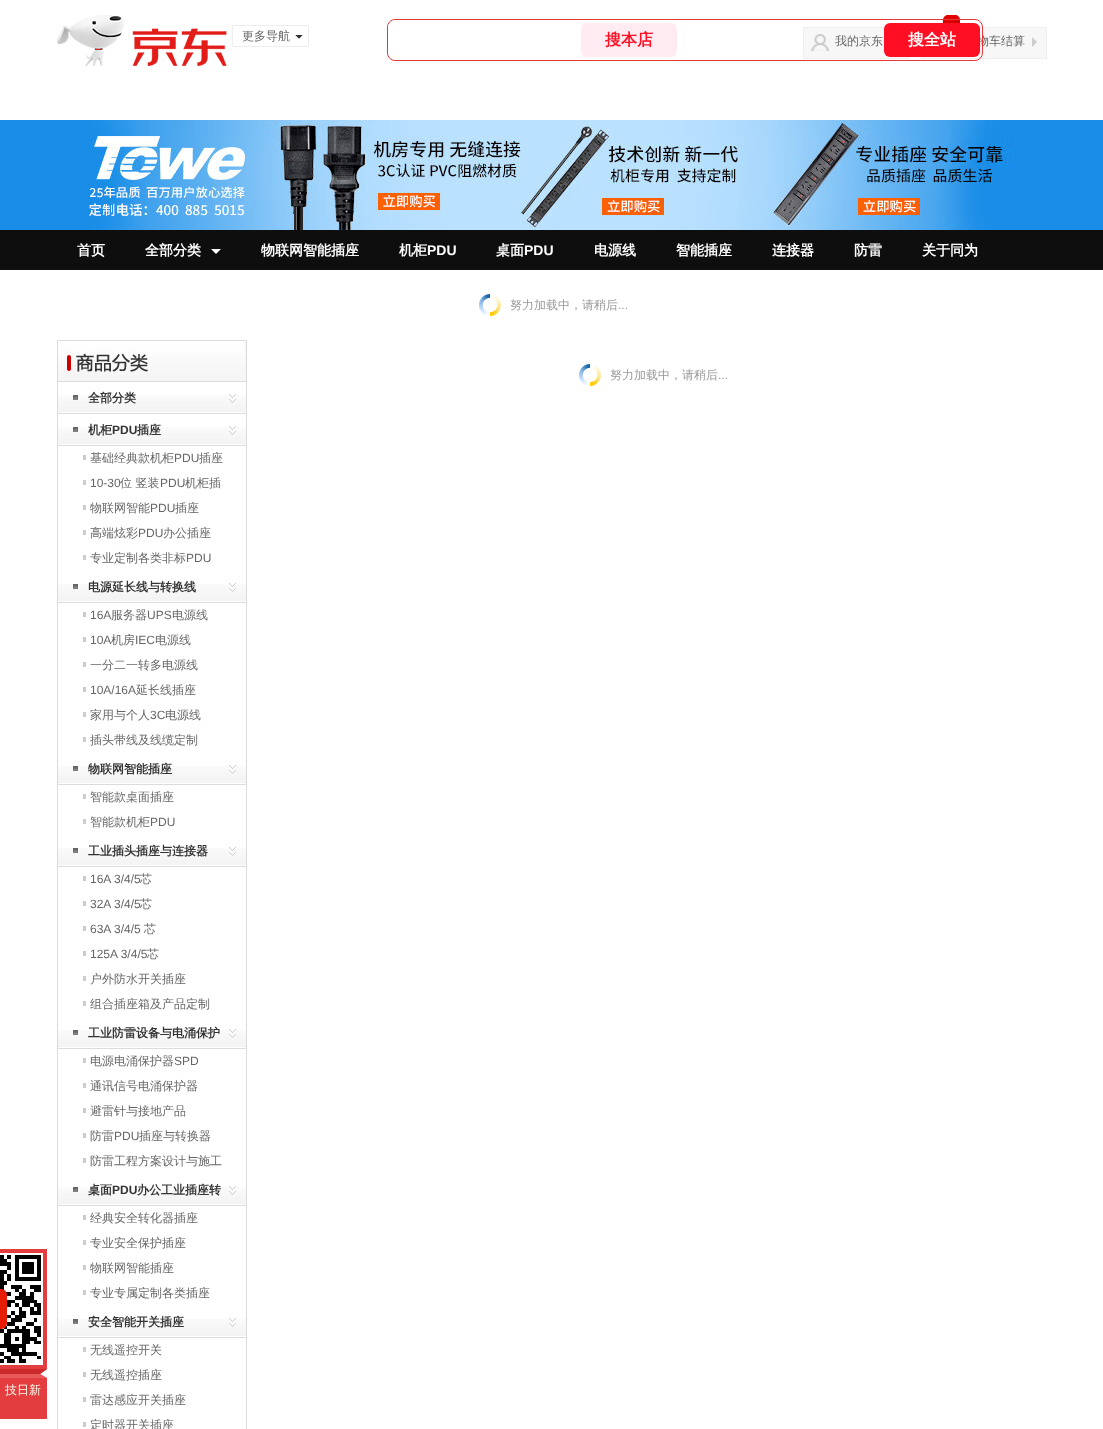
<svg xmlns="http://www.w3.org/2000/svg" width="1103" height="1429">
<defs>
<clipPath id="clip1"><rect x="88" y="753" width="140" height="30"/></clipPath>
</defs>
<rect width="100%" height="100%" fill="#fff"/>
<image x="57" y="15" width="170" height="51" href="media/1.png"/>
<rect x="232.5" y="25.5" width="76" height="21" fill="none" stroke="#eee"/>
<text x="242" y="40" style="font-family:WenQuanYi Zen Hei;font-size:12px;font-weight:500;fill:#666">更多导航</text>
<path d="M295 35h8l-4 4z" fill="#333"/>
<path d="M303 35v8l-4-4zm-8 8v-8l4 4z" fill="#fff"/>
<rect x="804" y="28" width="104" height="30" fill="#f7f7f7"/>
<image x="804" y="34" width="25" height="20" href="media/2.png"/>
<rect x="803.5" y="27.5" width="105" height="31" fill="none" stroke="#efefef"/>
<rect x="921.5" y="27.5" width="125" height="31" fill="#f7f7f7" stroke="#efefef"/>
<image x="942" y="15" width="18" height="8" href="media/3.png"/>
<image x="950" y="15" width="10" height="8" href="media/4.png"/>
<text x="977" y="45" style="font-family:WenQuanYi Zen Hei;font-size:12px;font-weight:500;fill:#666">物车结算</text>
<rect x="387.5" y="19.5" width="595" height="41" rx="7.5" fill="none" stroke="#e4393c"/>
<path d="M396 20h187v30h-195v-22c0-4.5 3.5-8 8-8z" fill="#fff"/>
<rect x="581" y="23" width="96" height="34" rx="6" fill="#ffebf1"/>
<text x="605" y="45" style="font-family:WenQuanYi Zen Hei;font-size:16px;font-weight:bold;fill:#ff0f23">搜本店</text>
<rect x="884" y="23" width="96" height="34" rx="6" fill="#ff0f23"/>
<text x="908" y="45" style="font-family:WenQuanYi Zen Hei;font-size:16px;font-weight:bold;fill:#fff">搜全站</text>
<text x="835" y="45" style="font-family:WenQuanYi Zen Hei;font-size:12px;font-weight:500;fill:#666">我的京东</text>
<path d="M1032 47v-10l5 5z" fill="#ccc"/>
<rect y="1249" width="47" height="120" fill="#e43d3f"/>
<image x="0" y="1253" width="43" height="112" href="media/5.png"/>
<image x="0" y="1369" width="47" height="9" href="media/6.png"/>
<rect y="1378" width="47" height="41" fill="#e43d3f"/>
<text x="5" y="1394" style="font-family:WenQuanYi Zen Hei;font-size:12px;font-weight:500;fill:#fffbee">技日新</text>
<rect y="120" width="1103" height="110" fill="#198de7"/>
<image x="89" y="120" width="925" height="110" href="media/7.png"/>
<rect y="230" width="1103" height="40" fill="#0e0e0e"/>
<text x="77" y="255" style="font-family:WenQuanYi Zen Hei;font-size:14px;font-weight:bold;fill:#fff">首页</text>
<text x="145" y="255" style="font-family:WenQuanYi Zen Hei;font-size:14px;font-weight:bold;fill:#fff">全部分类</text>
<path d="M211 249h10l-5 5z" fill="#fff"/>
<text x="261" y="255" style="font-family:WenQuanYi Zen Hei;font-size:14px;font-weight:bold;fill:#fff">物联网智能插座</text>
<text x="399" y="255" style="font-family:WenQuanYi Zen Hei;font-size:14px;font-weight:bold;fill:#fff">机柜</text>
<text x="427" y="255" style="font-family:Liberation Sans;font-size:14px;font-weight:bold;fill:#fff">PDU</text>
<text x="496" y="255" style="font-family:WenQuanYi Zen Hei;font-size:14px;font-weight:bold;fill:#fff">桌面</text>
<text x="524" y="255" style="font-family:Liberation Sans;font-size:14px;font-weight:bold;fill:#fff">PDU</text>
<text x="594" y="255" style="font-family:WenQuanYi Zen Hei;font-size:14px;font-weight:bold;fill:#fff">电源线</text>
<text x="676" y="255" style="font-family:WenQuanYi Zen Hei;font-size:14px;font-weight:bold;fill:#fff">智能插座</text>
<text x="772" y="255" style="font-family:WenQuanYi Zen Hei;font-size:14px;font-weight:bold;fill:#fff">连接器</text>
<text x="854" y="255" style="font-family:WenQuanYi Zen Hei;font-size:14px;font-weight:bold;fill:#fff">防雷</text>
<text x="922" y="255" style="font-family:WenQuanYi Zen Hei;font-size:14px;font-weight:bold;fill:#fff">关于同为</text>
<image x="479" y="294" width="22" height="22" href="media/8.png"/>
<text x="510" y="309" style="font-family:WenQuanYi Zen Hei;font-size:12px;font-weight:500;fill:#999">努力加载中，请稍后</text>
<text x="618" y="309" style="font-family:Liberation Sans;font-size:12px;fill:#999">...</text>
<image x="579" y="364" width="22" height="22" href="media/8.png"/>
<text x="610" y="379" style="font-family:WenQuanYi Zen Hei;font-size:12px;font-weight:500;fill:#999">努力加载中，请稍后</text>
<text x="718" y="379" style="font-family:Liberation Sans;font-size:12px;fill:#999">...</text>
<rect x="57.5" y="340.5" width="189" height="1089" fill="none" stroke="#dbdbdb"/>
<image x="58" y="341" width="188" height="41" href="media/9.png"/>
<image x="58" y="395" width="188" height="19" href="media/10.png"/>
<image x="73" y="395" width="5" height="5" href="media/11.png"/>
<text x="88" y="402" style="font-family:WenQuanYi Zen Hei;font-size:12px;font-weight:bold;fill:#333">全部分类</text>
<image x="229" y="394" width="7" height="9" href="media/12.png"/>
<image x="58" y="427" width="188" height="19" href="media/10.png"/>
<image x="73" y="427" width="5" height="5" href="media/11.png"/>
<text x="88" y="434" style="font-family:WenQuanYi Zen Hei;font-size:12px;font-weight:bold;fill:#333">机柜</text>
<text x="112" y="434" style="font-family:Liberation Sans;font-size:12px;font-weight:bold;fill:#333">PDU</text>
<text x="137" y="434" style="font-family:WenQuanYi Zen Hei;font-size:12px;font-weight:bold;fill:#333">插座</text>
<image x="229" y="426" width="7" height="9" href="media/12.png"/>
<rect x="83" y="455" width="3" height="5" fill="#ccc"/>
<text x="90" y="462" style="font-family:WenQuanYi Zen Hei;font-size:12px;font-weight:500;fill:#666">基础经典款机柜</text>
<text x="174" y="462" style="font-family:Liberation Sans;font-size:12px;fill:#666">PDU</text>
<text x="199" y="462" style="font-family:WenQuanYi Zen Hei;font-size:12px;font-weight:500;fill:#666">插座</text>
<rect x="83" y="480" width="3" height="5" fill="#ccc"/>
<text x="90" y="487" style="font-family:Liberation Sans;font-size:12px;fill:#666">10-30</text>
<text x="120" y="487" style="font-family:WenQuanYi Zen Hei;font-size:12px;font-weight:500;fill:#666">位 竖装</text>
<text x="160" y="487" style="font-family:Liberation Sans;font-size:12px;fill:#666">PDU</text>
<text x="185" y="487" style="font-family:WenQuanYi Zen Hei;font-size:12px;font-weight:500;fill:#666">机柜插</text>
<rect x="83" y="505" width="3" height="5" fill="#ccc"/>
<text x="90" y="512" style="font-family:WenQuanYi Zen Hei;font-size:12px;font-weight:500;fill:#666">物联网智能</text>
<text x="150" y="512" style="font-family:Liberation Sans;font-size:12px;fill:#666">PDU</text>
<text x="175" y="512" style="font-family:WenQuanYi Zen Hei;font-size:12px;font-weight:500;fill:#666">插座</text>
<rect x="83" y="530" width="3" height="5" fill="#ccc"/>
<text x="90" y="537" style="font-family:WenQuanYi Zen Hei;font-size:12px;font-weight:500;fill:#666">高端炫彩</text>
<text x="138" y="537" style="font-family:Liberation Sans;font-size:12px;fill:#666">PDU</text>
<text x="163" y="537" style="font-family:WenQuanYi Zen Hei;font-size:12px;font-weight:500;fill:#666">办公插座</text>
<rect x="83" y="555" width="3" height="5" fill="#ccc"/>
<text x="90" y="562" style="font-family:WenQuanYi Zen Hei;font-size:12px;font-weight:500;fill:#666">专业定制各类非标</text>
<text x="186" y="562" style="font-family:Liberation Sans;font-size:12px;fill:#666">PDU</text>
<image x="58" y="584" width="188" height="19" href="media/10.png"/>
<image x="73" y="584" width="5" height="5" href="media/11.png"/>
<text x="88" y="591" style="font-family:WenQuanYi Zen Hei;font-size:12px;font-weight:bold;fill:#333">电源延长线与转换线</text>
<image x="229" y="583" width="7" height="9" href="media/12.png"/>
<rect x="83" y="612" width="3" height="5" fill="#ccc"/>
<text x="90" y="619" style="font-family:Liberation Sans;font-size:12px;fill:#666">16A</text>
<text x="111" y="619" style="font-family:WenQuanYi Zen Hei;font-size:12px;font-weight:500;fill:#666">服务器</text>
<text x="147" y="619" style="font-family:Liberation Sans;font-size:12px;fill:#666">UPS</text>
<text x="172" y="619" style="font-family:WenQuanYi Zen Hei;font-size:12px;font-weight:500;fill:#666">电源线</text>
<rect x="83" y="637" width="3" height="5" fill="#ccc"/>
<text x="90" y="644" style="font-family:Liberation Sans;font-size:12px;fill:#666">10A</text>
<text x="111" y="644" style="font-family:WenQuanYi Zen Hei;font-size:12px;font-weight:500;fill:#666">机房</text>
<text x="135" y="644" style="font-family:Liberation Sans;font-size:12px;fill:#666">IEC</text>
<text x="155" y="644" style="font-family:WenQuanYi Zen Hei;font-size:12px;font-weight:500;fill:#666">电源线</text>
<rect x="83" y="662" width="3" height="5" fill="#ccc"/>
<text x="90" y="669" style="font-family:WenQuanYi Zen Hei;font-size:12px;font-weight:500;fill:#666">一分二一转多电源线</text>
<rect x="83" y="687" width="3" height="5" fill="#ccc"/>
<text x="90" y="694" style="font-family:Liberation Sans;font-size:12px;fill:#666">10A/16A</text>
<text x="136" y="694" style="font-family:WenQuanYi Zen Hei;font-size:12px;font-weight:500;fill:#666">延长线插座</text>
<rect x="83" y="712" width="3" height="5" fill="#ccc"/>
<text x="90" y="719" style="font-family:WenQuanYi Zen Hei;font-size:12px;font-weight:500;fill:#666">家用与个人</text>
<text x="150" y="719" style="font-family:Liberation Sans;font-size:12px;fill:#666">3C</text>
<text x="165" y="719" style="font-family:WenQuanYi Zen Hei;font-size:12px;font-weight:500;fill:#666">电源线</text>
<rect x="83" y="737" width="3" height="5" fill="#ccc"/>
<text x="90" y="744" style="font-family:WenQuanYi Zen Hei;font-size:12px;font-weight:500;fill:#666">插头带线及线缆定制</text>
<image x="58" y="766" width="188" height="19" href="media/10.png"/>
<image x="73" y="766" width="5" height="5" href="media/11.png"/>
<g clip-path="url(#clip1)">
<text x="88" y="773" style="font-family:WenQuanYi Zen Hei;font-size:12px;font-weight:bold;fill:#333">物联网智能插座</text>
</g>
<image x="229" y="765" width="7" height="9" href="media/12.png"/>
<rect x="83" y="794" width="3" height="5" fill="#ccc"/>
<text x="90" y="801" style="font-family:WenQuanYi Zen Hei;font-size:12px;font-weight:500;fill:#666">智能款桌面插座</text>
<rect x="83" y="819" width="3" height="5" fill="#ccc"/>
<text x="90" y="826" style="font-family:WenQuanYi Zen Hei;font-size:12px;font-weight:500;fill:#666">智能款机柜</text>
<text x="150" y="826" style="font-family:Liberation Sans;font-size:12px;fill:#666">PDU</text>
<image x="58" y="848" width="188" height="19" href="media/10.png"/>
<image x="73" y="848" width="5" height="5" href="media/11.png"/>
<text x="88" y="855" style="font-family:WenQuanYi Zen Hei;font-size:12px;font-weight:bold;fill:#333">工业插头插座与连接器</text>
<image x="229" y="847" width="7" height="9" href="media/12.png"/>
<rect x="83" y="876" width="3" height="5" fill="#ccc"/>
<text x="90" y="883" style="font-family:Liberation Sans;font-size:12px;fill:#666">16A 3/4/5</text>
<text x="140" y="883" style="font-family:WenQuanYi Zen Hei;font-size:12px;font-weight:500;fill:#666">芯</text>
<rect x="83" y="901" width="3" height="5" fill="#ccc"/>
<text x="90" y="908" style="font-family:Liberation Sans;font-size:12px;fill:#666">32A 3/4/5</text>
<text x="140" y="908" style="font-family:WenQuanYi Zen Hei;font-size:12px;font-weight:500;fill:#666">芯</text>
<rect x="83" y="926" width="3" height="5" fill="#ccc"/>
<text x="90" y="933" style="font-family:Liberation Sans;font-size:12px;fill:#666">63A 3/4/5</text>
<text x="144" y="933" style="font-family:WenQuanYi Zen Hei;font-size:12px;font-weight:500;fill:#666">芯</text>
<rect x="83" y="951" width="3" height="5" fill="#ccc"/>
<text x="90" y="958" style="font-family:Liberation Sans;font-size:12px;fill:#666">125A 3/4/5</text>
<text x="147" y="958" style="font-family:WenQuanYi Zen Hei;font-size:12px;font-weight:500;fill:#666">芯</text>
<rect x="83" y="976" width="3" height="5" fill="#ccc"/>
<text x="90" y="983" style="font-family:WenQuanYi Zen Hei;font-size:12px;font-weight:500;fill:#666">户外防水开关插座</text>
<rect x="83" y="1001" width="3" height="5" fill="#ccc"/>
<text x="90" y="1008" style="font-family:WenQuanYi Zen Hei;font-size:12px;font-weight:500;fill:#666">组合插座箱及产品定制</text>
<image x="58" y="1030" width="188" height="19" href="media/10.png"/>
<image x="73" y="1030" width="5" height="5" href="media/11.png"/>
<text x="88" y="1037" style="font-family:WenQuanYi Zen Hei;font-size:12px;font-weight:bold;fill:#333">工业防雷设备与电涌保护</text>
<image x="229" y="1029" width="7" height="9" href="media/12.png"/>
<rect x="83" y="1058" width="3" height="5" fill="#ccc"/>
<text x="90" y="1065" style="font-family:WenQuanYi Zen Hei;font-size:12px;font-weight:500;fill:#666">电源电涌保护器</text>
<text x="174" y="1065" style="font-family:Liberation Sans;font-size:12px;fill:#666">SPD</text>
<rect x="83" y="1083" width="3" height="5" fill="#ccc"/>
<text x="90" y="1090" style="font-family:WenQuanYi Zen Hei;font-size:12px;font-weight:500;fill:#666">通讯信号电涌保护器</text>
<rect x="83" y="1108" width="3" height="5" fill="#ccc"/>
<text x="90" y="1115" style="font-family:WenQuanYi Zen Hei;font-size:12px;font-weight:500;fill:#666">避雷针与接地产品</text>
<rect x="83" y="1133" width="3" height="5" fill="#ccc"/>
<text x="90" y="1140" style="font-family:WenQuanYi Zen Hei;font-size:12px;font-weight:500;fill:#666">防雷</text>
<text x="114" y="1140" style="font-family:Liberation Sans;font-size:12px;fill:#666">PDU</text>
<text x="139" y="1140" style="font-family:WenQuanYi Zen Hei;font-size:12px;font-weight:500;fill:#666">插座与转换器</text>
<rect x="83" y="1158" width="3" height="5" fill="#ccc"/>
<text x="90" y="1165" style="font-family:WenQuanYi Zen Hei;font-size:12px;font-weight:500;fill:#666">防雷工程方案设计与施工</text>
<image x="58" y="1187" width="188" height="19" href="media/10.png"/>
<image x="73" y="1187" width="5" height="5" href="media/11.png"/>
<text x="88" y="1194" style="font-family:WenQuanYi Zen Hei;font-size:12px;font-weight:bold;fill:#333">桌面</text>
<text x="112" y="1194" style="font-family:Liberation Sans;font-size:12px;font-weight:bold;fill:#333">PDU</text>
<text x="137" y="1194" style="font-family:WenQuanYi Zen Hei;font-size:12px;font-weight:bold;fill:#333">办公工业插座转</text>
<image x="229" y="1186" width="7" height="9" href="media/12.png"/>
<rect x="83" y="1215" width="3" height="5" fill="#ccc"/>
<text x="90" y="1222" style="font-family:WenQuanYi Zen Hei;font-size:12px;font-weight:500;fill:#666">经典安全转化器插座</text>
<rect x="83" y="1240" width="3" height="5" fill="#ccc"/>
<text x="90" y="1247" style="font-family:WenQuanYi Zen Hei;font-size:12px;font-weight:500;fill:#666">专业安全保护插座</text>
<rect x="83" y="1265" width="3" height="5" fill="#ccc"/>
<text x="90" y="1272" style="font-family:WenQuanYi Zen Hei;font-size:12px;font-weight:500;fill:#666">物联网智能插座</text>
<rect x="83" y="1290" width="3" height="5" fill="#ccc"/>
<text x="90" y="1297" style="font-family:WenQuanYi Zen Hei;font-size:12px;font-weight:500;fill:#666">专业专属定制各类插座</text>
<image x="58" y="1319" width="188" height="19" href="media/10.png"/>
<image x="73" y="1319" width="5" height="5" href="media/11.png"/>
<text x="88" y="1326" style="font-family:WenQuanYi Zen Hei;font-size:12px;font-weight:bold;fill:#333">安全智能开关插座</text>
<image x="229" y="1318" width="7" height="9" href="media/12.png"/>
<rect x="83" y="1347" width="3" height="5" fill="#ccc"/>
<text x="90" y="1354" style="font-family:WenQuanYi Zen Hei;font-size:12px;font-weight:500;fill:#666">无线遥控开关</text>
<rect x="83" y="1372" width="3" height="5" fill="#ccc"/>
<text x="90" y="1379" style="font-family:WenQuanYi Zen Hei;font-size:12px;font-weight:500;fill:#666">无线遥控插座</text>
<rect x="83" y="1397" width="3" height="5" fill="#ccc"/>
<text x="90" y="1404" style="font-family:WenQuanYi Zen Hei;font-size:12px;font-weight:500;fill:#666">雷达感应开关插座</text>
<rect x="83" y="1422" width="3" height="5" fill="#ccc"/>
<text x="90" y="1429" style="font-family:WenQuanYi Zen Hei;font-size:12px;font-weight:500;fill:#666">定时器开关插座</text>
</svg>
